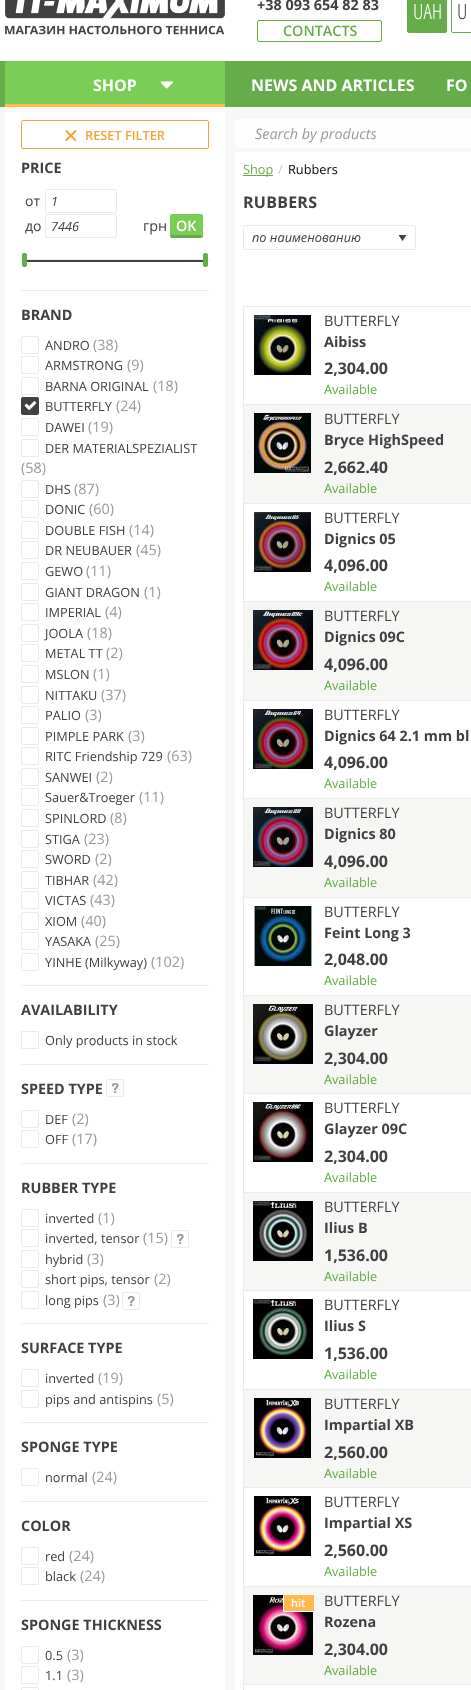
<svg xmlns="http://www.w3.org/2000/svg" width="471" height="1690">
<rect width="100%" height="100%" fill="#f7f7f5"/>
<rect width="471" height="61" fill="#fff"/>
<image x="5" y="0" width="220" height="35" href="media/1.png"/>
<text x="257" y="10" style="font-family:Open Sans;font-size:14.4px;font-weight:bold;fill:#424141">+38 093 654 82 83</text>
<rect x="257.5" y="20.5" width="124" height="21" rx="1.5" fill="none" stroke="#66ac4a"/>
<text x="283" y="36" style="font-family:Open Sans;font-size:14.4px;font-weight:600;fill:#66ac4a">CONTACTS</text>
<rect x="407.5" y="-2.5" width="39" height="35" rx="1.5" fill="#66ac4a" stroke="#66ac4a"/>
<text x="413" y="19" style="font-family:Open Sans Condensed;font-size:21px;font-weight:300;fill:#fff">UAH</text>
<rect x="451.5" y="-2.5" width="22" height="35" rx="1.5" fill="none" stroke="#66ac4a"/>
<text x="457" y="19" style="font-family:Open Sans Condensed;font-size:21px;font-weight:300;fill:#424141">U</text>
<rect y="61" width="471" height="46" fill="#66ac4a"/>
<rect x="5" y="61" width="220" height="43" fill="#7ace58"/>
<rect x="5" y="104" width="220" height="3" fill="#feba4e"/>
<text x="93" y="91" style="font-family:Open Sans;font-size:16px;font-weight:bold;fill:#fff">SHOP</text>
<image x="161" y="81" width="12" height="8" href="media/2.png"/>
<text x="251" y="91" style="font-family:Open Sans;font-size:16px;font-weight:bold;fill:#fff">NEWS AND ARTICLES</text>
<text x="446" y="91" style="font-family:Open Sans;font-size:16px;font-weight:bold;fill:#fff">FO</text>
<rect x="235" y="119" width="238" height="29" rx="2" fill="#fefefe"/>
<text x="255" y="139" style="font-family:Open Sans;font-size:14.4px;font-style:italic;fill:#999">Search by products</text>
<rect x="5" y="112" width="220" height="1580" rx="2" fill="#fff"/>
<rect x="21.5" y="120.5" width="187" height="28" rx="1.5" fill="none" stroke="#f8a038"/>
<image x="65" y="129" width="12" height="12" href="media/3.png"/>
<text x="85" y="140" style="font-family:Open Sans;font-size:12.75px;font-weight:600;fill:#f8a038">RESET FILTER</text>
<text x="21" y="173" style="font-family:Open Sans;font-size:14.4px;font-weight:bold;fill:#424141">PRICE</text>
<text x="25" y="206" style="font-family:Open Sans;font-size:14px;fill:#424141">от</text>
<rect x="45.5" y="189.5" width="71" height="23" rx="1.5" fill="none" stroke="#ebebeb"/>
<text x="51" y="206" style="font-family:Open Sans;font-size:12.75px;font-style:italic;fill:#424141">1</text>
<text x="25" y="231" style="font-family:Open Sans;font-size:14px;fill:#424141">до</text>
<rect x="45.5" y="214.5" width="71" height="23" rx="1.5" fill="none" stroke="#ebebeb"/>
<text x="51" y="231" style="font-family:Open Sans;font-size:12.75px;font-style:italic;fill:#424141">7446</text>
<text x="143" y="231" style="font-family:Open Sans;font-size:14.4px;fill:#424141">грн</text>
<rect x="170" y="214" width="33" height="24" rx="2" fill="#7ace58"/>
<path d="M172 238h29l1.5-1l-.5-2h-31l-.5 2c0 .5 1 1 1.5 1z" fill="#66ac4a"/>
<text x="176" y="231" style="font-family:Open Sans;font-size:14.4px;font-weight:600;fill:#fff">OK</text>
<rect x="21" y="259" width="188" height="2" fill="#ebebeb"/>
<rect x="22" y="260" width="185" height="2" fill="#424141"/>
<rect x="22" y="253" width="5" height="14" rx="2" fill="#66ac4a"/>
<rect x="203" y="253" width="5" height="14" rx="2" fill="#66ac4a"/>
<rect x="21" y="290" width="188" height="1" fill="#ebebeb"/>
<text x="21" y="320" style="font-family:Open Sans;font-size:14.4px;font-weight:bold;fill:#424141">BRAND</text>
<image x="21" y="336" width="18" height="18" href="media/4.png"/>
<text x="45" y="350" style="font-family:Open Sans;font-size:12.75px;fill:#424141">ANDRO</text>
<text x="93" y="350" style="font-family:Open Sans;font-size:14.4px;fill:#999">(38)</text>
<image x="21" y="356" width="18" height="18" href="media/4.png"/>
<text x="45" y="370" style="font-family:Open Sans;font-size:12.75px;fill:#424141">ARMSTRONG</text>
<text x="127" y="370" style="font-family:Open Sans;font-size:14.4px;fill:#999">(9)</text>
<image x="21" y="377" width="18" height="18" href="media/4.png"/>
<text x="45" y="391" style="font-family:Open Sans;font-size:12.75px;fill:#424141">BARNA ORIGINAL</text>
<text x="153" y="391" style="font-family:Open Sans;font-size:14.4px;fill:#999">(18)</text>
<image x="21" y="397" width="18" height="18" href="media/5.png"/>
<text x="45" y="411" style="font-family:Open Sans;font-size:12.75px;fill:#424141">BUTTERFLY</text>
<text x="116" y="411" style="font-family:Open Sans;font-size:14.4px;fill:#999">(24)</text>
<image x="21" y="418" width="18" height="18" href="media/4.png"/>
<text x="45" y="432" style="font-family:Open Sans;font-size:12.75px;fill:#424141">DAWEI</text>
<text x="88" y="432" style="font-family:Open Sans;font-size:14.4px;fill:#999">(19)</text>
<image x="21" y="439" width="18" height="18" href="media/4.png"/>
<text x="45" y="453" style="font-family:Open Sans;font-size:12.75px;fill:#424141">DER MATERIALSPEZIALIST</text>
<text x="21" y="473" style="font-family:Open Sans;font-size:14.4px;fill:#999">(58)</text>
<image x="21" y="480" width="18" height="18" href="media/4.png"/>
<text x="45" y="494" style="font-family:Open Sans;font-size:12.75px;fill:#424141">DHS</text>
<text x="74" y="494" style="font-family:Open Sans;font-size:14.4px;fill:#999">(87)</text>
<image x="21" y="500" width="18" height="18" href="media/4.png"/>
<text x="45" y="514" style="font-family:Open Sans;font-size:12.75px;fill:#424141">DONIC</text>
<text x="89" y="514" style="font-family:Open Sans;font-size:14.4px;fill:#999">(60)</text>
<image x="21" y="521" width="18" height="18" href="media/4.png"/>
<text x="45" y="535" style="font-family:Open Sans;font-size:12.75px;fill:#424141">DOUBLE FISH</text>
<text x="129" y="535" style="font-family:Open Sans;font-size:14.4px;fill:#999">(14)</text>
<image x="21" y="541" width="18" height="18" href="media/4.png"/>
<text x="45" y="555" style="font-family:Open Sans;font-size:12.75px;fill:#424141">DR NEUBAUER</text>
<text x="136" y="555" style="font-family:Open Sans;font-size:14.4px;fill:#999">(45)</text>
<image x="21" y="562" width="18" height="18" href="media/4.png"/>
<text x="45" y="576" style="font-family:Open Sans;font-size:12.75px;fill:#424141">GEWO</text>
<text x="86" y="576" style="font-family:Open Sans;font-size:14.4px;fill:#999">(11)</text>
<image x="21" y="583" width="18" height="18" href="media/4.png"/>
<text x="45" y="597" style="font-family:Open Sans;font-size:12.75px;fill:#424141">GIANT DRAGON</text>
<text x="144" y="597" style="font-family:Open Sans;font-size:14.4px;fill:#999">(1)</text>
<image x="21" y="603" width="18" height="18" href="media/4.png"/>
<text x="45" y="617" style="font-family:Open Sans;font-size:12.75px;fill:#424141">IMPERIAL</text>
<text x="105" y="617" style="font-family:Open Sans;font-size:14.4px;fill:#999">(4)</text>
<image x="21" y="624" width="18" height="18" href="media/4.png"/>
<text x="45" y="638" style="font-family:Open Sans;font-size:12.75px;fill:#424141">JOOLA</text>
<text x="87" y="638" style="font-family:Open Sans;font-size:14.4px;fill:#999">(18)</text>
<image x="21" y="644" width="18" height="18" href="media/4.png"/>
<text x="45" y="658" style="font-family:Open Sans;font-size:12.75px;fill:#424141">METAL TT</text>
<text x="106" y="658" style="font-family:Open Sans;font-size:14.4px;fill:#999">(2)</text>
<image x="21" y="665" width="18" height="18" href="media/4.png"/>
<text x="45" y="679" style="font-family:Open Sans;font-size:12.75px;fill:#424141">MSLON</text>
<text x="93" y="679" style="font-family:Open Sans;font-size:14.4px;fill:#999">(1)</text>
<image x="21" y="686" width="18" height="18" href="media/4.png"/>
<text x="45" y="700" style="font-family:Open Sans;font-size:12.75px;fill:#424141">NITTAKU</text>
<text x="101" y="700" style="font-family:Open Sans;font-size:14.4px;fill:#999">(37)</text>
<image x="21" y="706" width="18" height="18" href="media/4.png"/>
<text x="45" y="720" style="font-family:Open Sans;font-size:12.75px;fill:#424141">PALIO</text>
<text x="85" y="720" style="font-family:Open Sans;font-size:14.4px;fill:#999">(3)</text>
<image x="21" y="727" width="18" height="18" href="media/4.png"/>
<text x="45" y="741" style="font-family:Open Sans;font-size:12.75px;fill:#424141">PIMPLE PARK</text>
<text x="128" y="741" style="font-family:Open Sans;font-size:14.4px;fill:#999">(3)</text>
<image x="21" y="747" width="18" height="18" href="media/4.png"/>
<text x="45" y="761" style="font-family:Open Sans;font-size:12.75px;fill:#424141">RITC Friendship 729</text>
<text x="167" y="761" style="font-family:Open Sans;font-size:14.4px;fill:#999">(63)</text>
<image x="21" y="768" width="18" height="18" href="media/4.png"/>
<text x="45" y="782" style="font-family:Open Sans;font-size:12.75px;fill:#424141">SANWEI</text>
<text x="96" y="782" style="font-family:Open Sans;font-size:14.4px;fill:#999">(2)</text>
<image x="21" y="788" width="18" height="18" href="media/4.png"/>
<text x="45" y="802" style="font-family:Open Sans;font-size:12.75px;fill:#424141">Sauer&amp;Troeger</text>
<text x="139" y="802" style="font-family:Open Sans;font-size:14.4px;fill:#999">(11)</text>
<image x="21" y="809" width="18" height="18" href="media/4.png"/>
<text x="45" y="823" style="font-family:Open Sans;font-size:12.75px;fill:#424141">SPINLORD</text>
<text x="110" y="823" style="font-family:Open Sans;font-size:14.4px;fill:#999">(8)</text>
<image x="21" y="830" width="18" height="18" href="media/4.png"/>
<text x="45" y="844" style="font-family:Open Sans;font-size:12.75px;fill:#424141">STIGA</text>
<text x="84" y="844" style="font-family:Open Sans;font-size:14.4px;fill:#999">(23)</text>
<image x="21" y="850" width="18" height="18" href="media/4.png"/>
<text x="45" y="864" style="font-family:Open Sans;font-size:12.75px;fill:#424141">SWORD</text>
<text x="95" y="864" style="font-family:Open Sans;font-size:14.4px;fill:#999">(2)</text>
<image x="21" y="871" width="18" height="18" href="media/4.png"/>
<text x="45" y="885" style="font-family:Open Sans;font-size:12.75px;fill:#424141">TIBHAR</text>
<text x="93" y="885" style="font-family:Open Sans;font-size:14.4px;fill:#999">(42)</text>
<image x="21" y="891" width="18" height="18" href="media/4.png"/>
<text x="45" y="905" style="font-family:Open Sans;font-size:12.75px;fill:#424141">VICTAS</text>
<text x="90" y="905" style="font-family:Open Sans;font-size:14.4px;fill:#999">(43)</text>
<image x="21" y="912" width="18" height="18" href="media/4.png"/>
<text x="45" y="926" style="font-family:Open Sans;font-size:12.75px;fill:#424141">XIOM</text>
<text x="81" y="926" style="font-family:Open Sans;font-size:14.4px;fill:#999">(40)</text>
<image x="21" y="932" width="18" height="18" href="media/4.png"/>
<text x="45" y="946" style="font-family:Open Sans;font-size:12.75px;fill:#424141">YASAKA</text>
<text x="95" y="946" style="font-family:Open Sans;font-size:14.4px;fill:#999">(25)</text>
<image x="21" y="953" width="18" height="18" href="media/4.png"/>
<text x="45" y="967" style="font-family:Open Sans;font-size:12.75px;fill:#424141">YINHE (Milkyway)</text>
<text x="151" y="967" style="font-family:Open Sans;font-size:14.4px;fill:#999">(102)</text>
<rect x="21" y="985" width="188" height="1" fill="#ebebeb"/>
<text x="21" y="1015" style="font-family:Open Sans;font-size:14.4px;font-weight:bold;fill:#424141">AVAILABILITY</text>
<image x="21" y="1031" width="18" height="18" href="media/4.png"/>
<text x="45" y="1045" style="font-family:Open Sans;font-size:12.75px;fill:#424141">Only products in stock</text>
<rect x="21" y="1064" width="188" height="1" fill="#ebebeb"/>
<text x="21" y="1094" style="font-family:Open Sans;font-size:14.4px;font-weight:bold;fill:#424141">SPEED TYPE</text>
<image x="106" y="1079" width="18" height="18" href="media/6.png"/>
<image x="21" y="1110" width="18" height="18" href="media/4.png"/>
<text x="45" y="1124" style="font-family:Open Sans;font-size:12.75px;fill:#424141">DEF</text>
<text x="72" y="1124" style="font-family:Open Sans;font-size:14.4px;fill:#999">(2)</text>
<image x="21" y="1130" width="18" height="18" href="media/4.png"/>
<text x="45" y="1144" style="font-family:Open Sans;font-size:12.75px;fill:#424141">OFF</text>
<text x="72" y="1144" style="font-family:Open Sans;font-size:14.4px;fill:#999">(17)</text>
<rect x="21" y="1163" width="188" height="1" fill="#ebebeb"/>
<text x="21" y="1193" style="font-family:Open Sans;font-size:14.4px;font-weight:bold;fill:#424141">RUBBER TYPE</text>
<image x="21" y="1209" width="18" height="18" href="media/4.png"/>
<text x="45" y="1223" style="font-family:Open Sans;font-size:12.75px;fill:#424141">inverted</text>
<text x="98" y="1223" style="font-family:Open Sans;font-size:14.4px;fill:#999">(1)</text>
<image x="21" y="1229" width="18" height="18" href="media/4.png"/>
<text x="45" y="1243" style="font-family:Open Sans;font-size:12.75px;fill:#424141">inverted, tensor</text>
<text x="143" y="1243" style="font-family:Open Sans;font-size:14.4px;fill:#999">(15)</text>
<image x="171" y="1230" width="18" height="18" href="media/6.png"/>
<image x="21" y="1250" width="18" height="18" href="media/4.png"/>
<text x="45" y="1264" style="font-family:Open Sans;font-size:12.75px;fill:#424141">hybrid</text>
<text x="87" y="1264" style="font-family:Open Sans;font-size:14.4px;fill:#999">(3)</text>
<image x="21" y="1270" width="18" height="18" href="media/4.png"/>
<text x="45" y="1284" style="font-family:Open Sans;font-size:12.75px;fill:#424141">short pips, tensor</text>
<text x="154" y="1284" style="font-family:Open Sans;font-size:14.4px;fill:#999">(2)</text>
<image x="21" y="1291" width="18" height="18" href="media/4.png"/>
<text x="45" y="1305" style="font-family:Open Sans;font-size:12.75px;fill:#424141">long pips</text>
<text x="103" y="1305" style="font-family:Open Sans;font-size:14.4px;fill:#999">(3)</text>
<image x="122" y="1292" width="18" height="18" href="media/6.png"/>
<rect x="21" y="1323" width="188" height="1" fill="#ebebeb"/>
<text x="21" y="1353" style="font-family:Open Sans;font-size:14.4px;font-weight:bold;fill:#424141">SURFACE TYPE</text>
<image x="21" y="1369" width="18" height="18" href="media/4.png"/>
<text x="45" y="1383" style="font-family:Open Sans;font-size:12.75px;fill:#424141">inverted</text>
<text x="98" y="1383" style="font-family:Open Sans;font-size:14.4px;fill:#999">(19)</text>
<image x="21" y="1390" width="18" height="18" href="media/4.png"/>
<text x="45" y="1404" style="font-family:Open Sans;font-size:12.75px;fill:#424141">pips and antispins</text>
<text x="157" y="1404" style="font-family:Open Sans;font-size:14.4px;fill:#999">(5)</text>
<rect x="21" y="1422" width="188" height="1" fill="#ebebeb"/>
<text x="21" y="1452" style="font-family:Open Sans;font-size:14.4px;font-weight:bold;fill:#424141">SPONGE TYPE</text>
<image x="21" y="1468" width="18" height="18" href="media/4.png"/>
<text x="45" y="1482" style="font-family:Open Sans;font-size:12.75px;fill:#424141">normal</text>
<text x="92" y="1482" style="font-family:Open Sans;font-size:14.4px;fill:#999">(24)</text>
<rect x="21" y="1501" width="188" height="1" fill="#ebebeb"/>
<text x="21" y="1531" style="font-family:Open Sans;font-size:14.4px;font-weight:bold;fill:#424141">COLOR</text>
<image x="21" y="1547" width="18" height="18" href="media/4.png"/>
<text x="45" y="1561" style="font-family:Open Sans;font-size:12.75px;fill:#424141">red</text>
<text x="69" y="1561" style="font-family:Open Sans;font-size:14.4px;fill:#999">(24)</text>
<image x="21" y="1567" width="18" height="18" href="media/4.png"/>
<text x="45" y="1581" style="font-family:Open Sans;font-size:12.75px;fill:#424141">black</text>
<text x="80" y="1581" style="font-family:Open Sans;font-size:14.4px;fill:#999">(24)</text>
<rect x="21" y="1600" width="188" height="1" fill="#ebebeb"/>
<text x="21" y="1630" style="font-family:Open Sans;font-size:14.4px;font-weight:bold;fill:#424141">SPONGE THICKNESS</text>
<image x="21" y="1646" width="18" height="18" href="media/4.png"/>
<text x="45" y="1660" style="font-family:Open Sans;font-size:12.75px;fill:#424141">0.5</text>
<text x="67" y="1660" style="font-family:Open Sans;font-size:14.4px;fill:#999">(3)</text>
<image x="21" y="1666" width="18" height="18" href="media/4.png"/>
<text x="45" y="1680" style="font-family:Open Sans;font-size:12.75px;fill:#424141">1.1</text>
<text x="67" y="1680" style="font-family:Open Sans;font-size:14.4px;fill:#999">(3)</text>
<image x="21" y="1687" width="18" height="3" href="media/7.png"/>
<rect x="235" y="152" width="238" height="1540" rx="2" fill="#fff"/>
<rect x="243" y="175" width="30" height="1" fill="#66ac4a"/>
<text x="243" y="174" style="font-family:Open Sans;font-size:12.75px;fill:#66ac4a">Shop</text>
<text x="278" y="174" style="font-family:Open Sans;font-size:12.75px;fill:#cacaca">/</text>
<text x="288" y="174" style="font-family:Open Sans;font-size:12.75px;fill:#0a0a0a">Rubbers</text>
<text x="243" y="208" style="font-family:Open Sans;font-size:16px;font-weight:bold;letter-spacing:0.25px;fill:#424141">RUBBERS</text>
<path d="M398.5 235h8l-4 6z" fill="#424141"/>
<rect x="243.5" y="225.5" width="172" height="24" rx="1.5" fill="none" stroke="#ebebeb"/>
<text x="252" y="242" style="font-family:Open Sans;font-size:12.75px;font-style:italic;fill:#424141">по наименованию</text>
<rect x="243.5" y="306.5" width="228" height="98" fill="none" stroke="#ebebeb"/>
<image x="254" y="315" width="57" height="60" href="media/8.png"/>
<text x="324" y="326" style="font-family:Open Sans;font-size:14.4px;fill:#424141">BUTTERFLY</text>
<text x="324" y="347" style="font-family:Open Sans;font-size:14.4px;font-weight:bold;fill:#424141">Aibiss</text>
<text x="324" y="374" style="font-family:Open Sans;font-size:16px;font-weight:bold;fill:#424141">2,304.00</text>
<text x="324" y="394" style="font-family:Noto Sans;font-size:12.75px;fill:#66ac4a">A</text>
<text x="332" y="394" style="font-family:Open Sans;font-size:12.75px;fill:#66ac4a">vailable</text>
<rect x="243.5" y="404.5" width="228" height="99" fill="#f6f6f4" stroke="#ebebeb"/>
<image x="254" y="413" width="57" height="60" href="media/9.png"/>
<text x="324" y="424" style="font-family:Open Sans;font-size:14.4px;fill:#424141">BUTTERFLY</text>
<text x="324" y="445" style="font-family:Open Sans;font-size:14.4px;font-weight:bold;fill:#424141">Bryce HighSpeed</text>
<text x="324" y="473" style="font-family:Open Sans;font-size:16px;font-weight:bold;fill:#424141">2,662.40</text>
<text x="324" y="493" style="font-family:Noto Sans;font-size:12.75px;fill:#66ac4a">A</text>
<text x="332" y="493" style="font-family:Open Sans;font-size:12.75px;fill:#66ac4a">vailable</text>
<rect x="243.5" y="503.5" width="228" height="98" fill="none" stroke="#ebebeb"/>
<image x="254" y="512" width="57" height="60" href="media/10.png"/>
<text x="324" y="523" style="font-family:Open Sans;font-size:14.4px;fill:#424141">BUTTERFLY</text>
<text x="324" y="544" style="font-family:Open Sans;font-size:14.4px;font-weight:bold;fill:#424141">Dignics 05</text>
<text x="324" y="571" style="font-family:Open Sans;font-size:16px;font-weight:bold;fill:#424141">4,096.00</text>
<text x="324" y="591" style="font-family:Noto Sans;font-size:12.75px;fill:#66ac4a">A</text>
<text x="332" y="591" style="font-family:Open Sans;font-size:12.75px;fill:#66ac4a">vailable</text>
<rect x="243.5" y="601.5" width="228" height="99" fill="#f6f6f4" stroke="#ebebeb"/>
<image x="253" y="610" width="60" height="60" href="media/11.png"/>
<text x="324" y="621" style="font-family:Open Sans;font-size:14.4px;fill:#424141">BUTTERFLY</text>
<text x="324" y="642" style="font-family:Open Sans;font-size:14.4px;font-weight:bold;fill:#424141">Dignics 09C</text>
<text x="324" y="670" style="font-family:Open Sans;font-size:16px;font-weight:bold;fill:#424141">4,096.00</text>
<text x="324" y="690" style="font-family:Noto Sans;font-size:12.75px;fill:#66ac4a">A</text>
<text x="332" y="690" style="font-family:Open Sans;font-size:12.75px;fill:#66ac4a">vailable</text>
<rect x="243.5" y="700.5" width="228" height="98" fill="none" stroke="#ebebeb"/>
<image x="253" y="709" width="60" height="60" href="media/12.png"/>
<text x="324" y="720" style="font-family:Open Sans;font-size:14.4px;fill:#424141">BUTTERFLY</text>
<text x="324" y="741" style="font-family:Open Sans;font-size:14.4px;font-weight:bold;fill:#424141">Dignics 64 2.1 mm bl</text>
<text x="324" y="768" style="font-family:Open Sans;font-size:16px;font-weight:bold;fill:#424141">4,096.00</text>
<text x="324" y="788" style="font-family:Noto Sans;font-size:12.75px;fill:#66ac4a">A</text>
<text x="332" y="788" style="font-family:Open Sans;font-size:12.75px;fill:#66ac4a">vailable</text>
<rect x="243.5" y="798.5" width="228" height="99" fill="#f6f6f4" stroke="#ebebeb"/>
<image x="253" y="807" width="60" height="60" href="media/13.png"/>
<text x="324" y="818" style="font-family:Open Sans;font-size:14.4px;fill:#424141">BUTTERFLY</text>
<text x="324" y="839" style="font-family:Open Sans;font-size:14.4px;font-weight:bold;fill:#424141">Dignics 80</text>
<text x="324" y="867" style="font-family:Open Sans;font-size:16px;font-weight:bold;fill:#424141">4,096.00</text>
<text x="324" y="887" style="font-family:Noto Sans;font-size:12.75px;fill:#66ac4a">A</text>
<text x="332" y="887" style="font-family:Open Sans;font-size:12.75px;fill:#66ac4a">vailable</text>
<rect x="243.5" y="897.5" width="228" height="98" fill="none" stroke="#ebebeb"/>
<image x="253" y="906" width="60" height="60" href="media/14.png"/>
<text x="324" y="917" style="font-family:Open Sans;font-size:14.4px;fill:#424141">BUTTERFLY</text>
<text x="324" y="938" style="font-family:Open Sans;font-size:14.4px;font-weight:bold;fill:#424141">Feint Long 3</text>
<text x="324" y="965" style="font-family:Open Sans;font-size:16px;font-weight:bold;fill:#424141">2,048.00</text>
<text x="324" y="985" style="font-family:Noto Sans;font-size:12.75px;fill:#66ac4a">A</text>
<text x="332" y="985" style="font-family:Open Sans;font-size:12.75px;fill:#66ac4a">vailable</text>
<rect x="243.5" y="995.5" width="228" height="98" fill="#f6f6f4" stroke="#ebebeb"/>
<image x="253" y="1004" width="60" height="60" href="media/15.png"/>
<text x="324" y="1015" style="font-family:Open Sans;font-size:14.4px;fill:#424141">BUTTERFLY</text>
<text x="324" y="1036" style="font-family:Open Sans;font-size:14.4px;font-weight:bold;fill:#424141">Glayzer</text>
<text x="324" y="1064" style="font-family:Open Sans;font-size:16px;font-weight:bold;fill:#424141">2,304.00</text>
<text x="324" y="1084" style="font-family:Noto Sans;font-size:12.75px;fill:#66ac4a">A</text>
<text x="332" y="1084" style="font-family:Open Sans;font-size:12.75px;fill:#66ac4a">vailable</text>
<rect x="243.5" y="1093.5" width="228" height="99" fill="none" stroke="#ebebeb"/>
<image x="253" y="1102" width="60" height="60" href="media/16.png"/>
<text x="324" y="1113" style="font-family:Open Sans;font-size:14.4px;fill:#424141">BUTTERFLY</text>
<text x="324" y="1134" style="font-family:Open Sans;font-size:14.4px;font-weight:bold;fill:#424141">Glayzer 09C</text>
<text x="324" y="1162" style="font-family:Open Sans;font-size:16px;font-weight:bold;fill:#424141">2,304.00</text>
<text x="324" y="1182" style="font-family:Noto Sans;font-size:12.75px;fill:#66ac4a">A</text>
<text x="332" y="1182" style="font-family:Open Sans;font-size:12.75px;fill:#66ac4a">vailable</text>
<rect x="243.5" y="1192.5" width="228" height="98" fill="#f6f6f4" stroke="#ebebeb"/>
<image x="253" y="1201" width="60" height="60" href="media/17.png"/>
<text x="324" y="1212" style="font-family:Open Sans;font-size:14.4px;fill:#424141">BUTTERFLY</text>
<text x="324" y="1233" style="font-family:Open Sans;font-size:14.4px;font-weight:bold;fill:#424141">Ilius B</text>
<text x="324" y="1261" style="font-family:Open Sans;font-size:16px;font-weight:bold;fill:#424141">1,536.00</text>
<text x="324" y="1281" style="font-family:Noto Sans;font-size:12.75px;fill:#66ac4a">A</text>
<text x="332" y="1281" style="font-family:Open Sans;font-size:12.75px;fill:#66ac4a">vailable</text>
<rect x="243.5" y="1290.5" width="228" height="99" fill="none" stroke="#ebebeb"/>
<image x="253" y="1299" width="60" height="60" href="media/18.png"/>
<text x="324" y="1310" style="font-family:Open Sans;font-size:14.4px;fill:#424141">BUTTERFLY</text>
<text x="324" y="1331" style="font-family:Open Sans;font-size:14.4px;font-weight:bold;fill:#424141">Ilius S</text>
<text x="324" y="1359" style="font-family:Open Sans;font-size:16px;font-weight:bold;fill:#424141">1,536.00</text>
<text x="324" y="1379" style="font-family:Noto Sans;font-size:12.75px;fill:#66ac4a">A</text>
<text x="332" y="1379" style="font-family:Open Sans;font-size:12.75px;fill:#66ac4a">vailable</text>
<rect x="243.5" y="1389.5" width="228" height="98" fill="#f6f6f4" stroke="#ebebeb"/>
<image x="254" y="1398" width="57" height="60" href="media/19.png"/>
<text x="324" y="1409" style="font-family:Open Sans;font-size:14.4px;fill:#424141">BUTTERFLY</text>
<text x="324" y="1430" style="font-family:Open Sans;font-size:14.4px;font-weight:bold;fill:#424141">Impartial XB</text>
<text x="324" y="1458" style="font-family:Open Sans;font-size:16px;font-weight:bold;fill:#424141">2,560.00</text>
<text x="324" y="1478" style="font-family:Noto Sans;font-size:12.75px;fill:#66ac4a">A</text>
<text x="332" y="1478" style="font-family:Open Sans;font-size:12.75px;fill:#66ac4a">vailable</text>
<rect x="243.5" y="1487.5" width="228" height="99" fill="none" stroke="#ebebeb"/>
<image x="254" y="1496" width="57" height="60" href="media/20.png"/>
<text x="324" y="1507" style="font-family:Open Sans;font-size:14.4px;fill:#424141">BUTTERFLY</text>
<text x="324" y="1528" style="font-family:Open Sans;font-size:14.4px;font-weight:bold;fill:#424141">Impartial XS</text>
<text x="324" y="1556" style="font-family:Open Sans;font-size:16px;font-weight:bold;fill:#424141">2,560.00</text>
<text x="324" y="1576" style="font-family:Noto Sans;font-size:12.75px;fill:#66ac4a">A</text>
<text x="332" y="1576" style="font-family:Open Sans;font-size:12.75px;fill:#66ac4a">vailable</text>
<rect x="243.5" y="1586.5" width="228" height="98" fill="#f6f6f4" stroke="#ebebeb"/>
<image x="253" y="1595" width="60" height="60" href="media/21.png"/>
<rect x="283.5" y="1594.5" width="31" height="17" rx="0.5" fill="#feba4e" stroke="#fff"/>
<text x="291" y="1607" style="font-family:Open Sans;font-size:11px;font-weight:600;fill:#fff">hit</text>
<text x="324" y="1606" style="font-family:Open Sans;font-size:14.4px;fill:#424141">BUTTERFLY</text>
<text x="324" y="1627" style="font-family:Open Sans;font-size:14.4px;font-weight:bold;fill:#424141">Rozena</text>
<text x="324" y="1655" style="font-family:Open Sans;font-size:16px;font-weight:bold;fill:#424141">2,304.00</text>
<text x="324" y="1675" style="font-family:Noto Sans;font-size:12.75px;fill:#66ac4a">A</text>
<text x="332" y="1675" style="font-family:Open Sans;font-size:12.75px;fill:#66ac4a">vailable</text>
<rect x="243.5" y="1684.5" width="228" height="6" fill="none" stroke="#ebebeb"/>
</svg>
